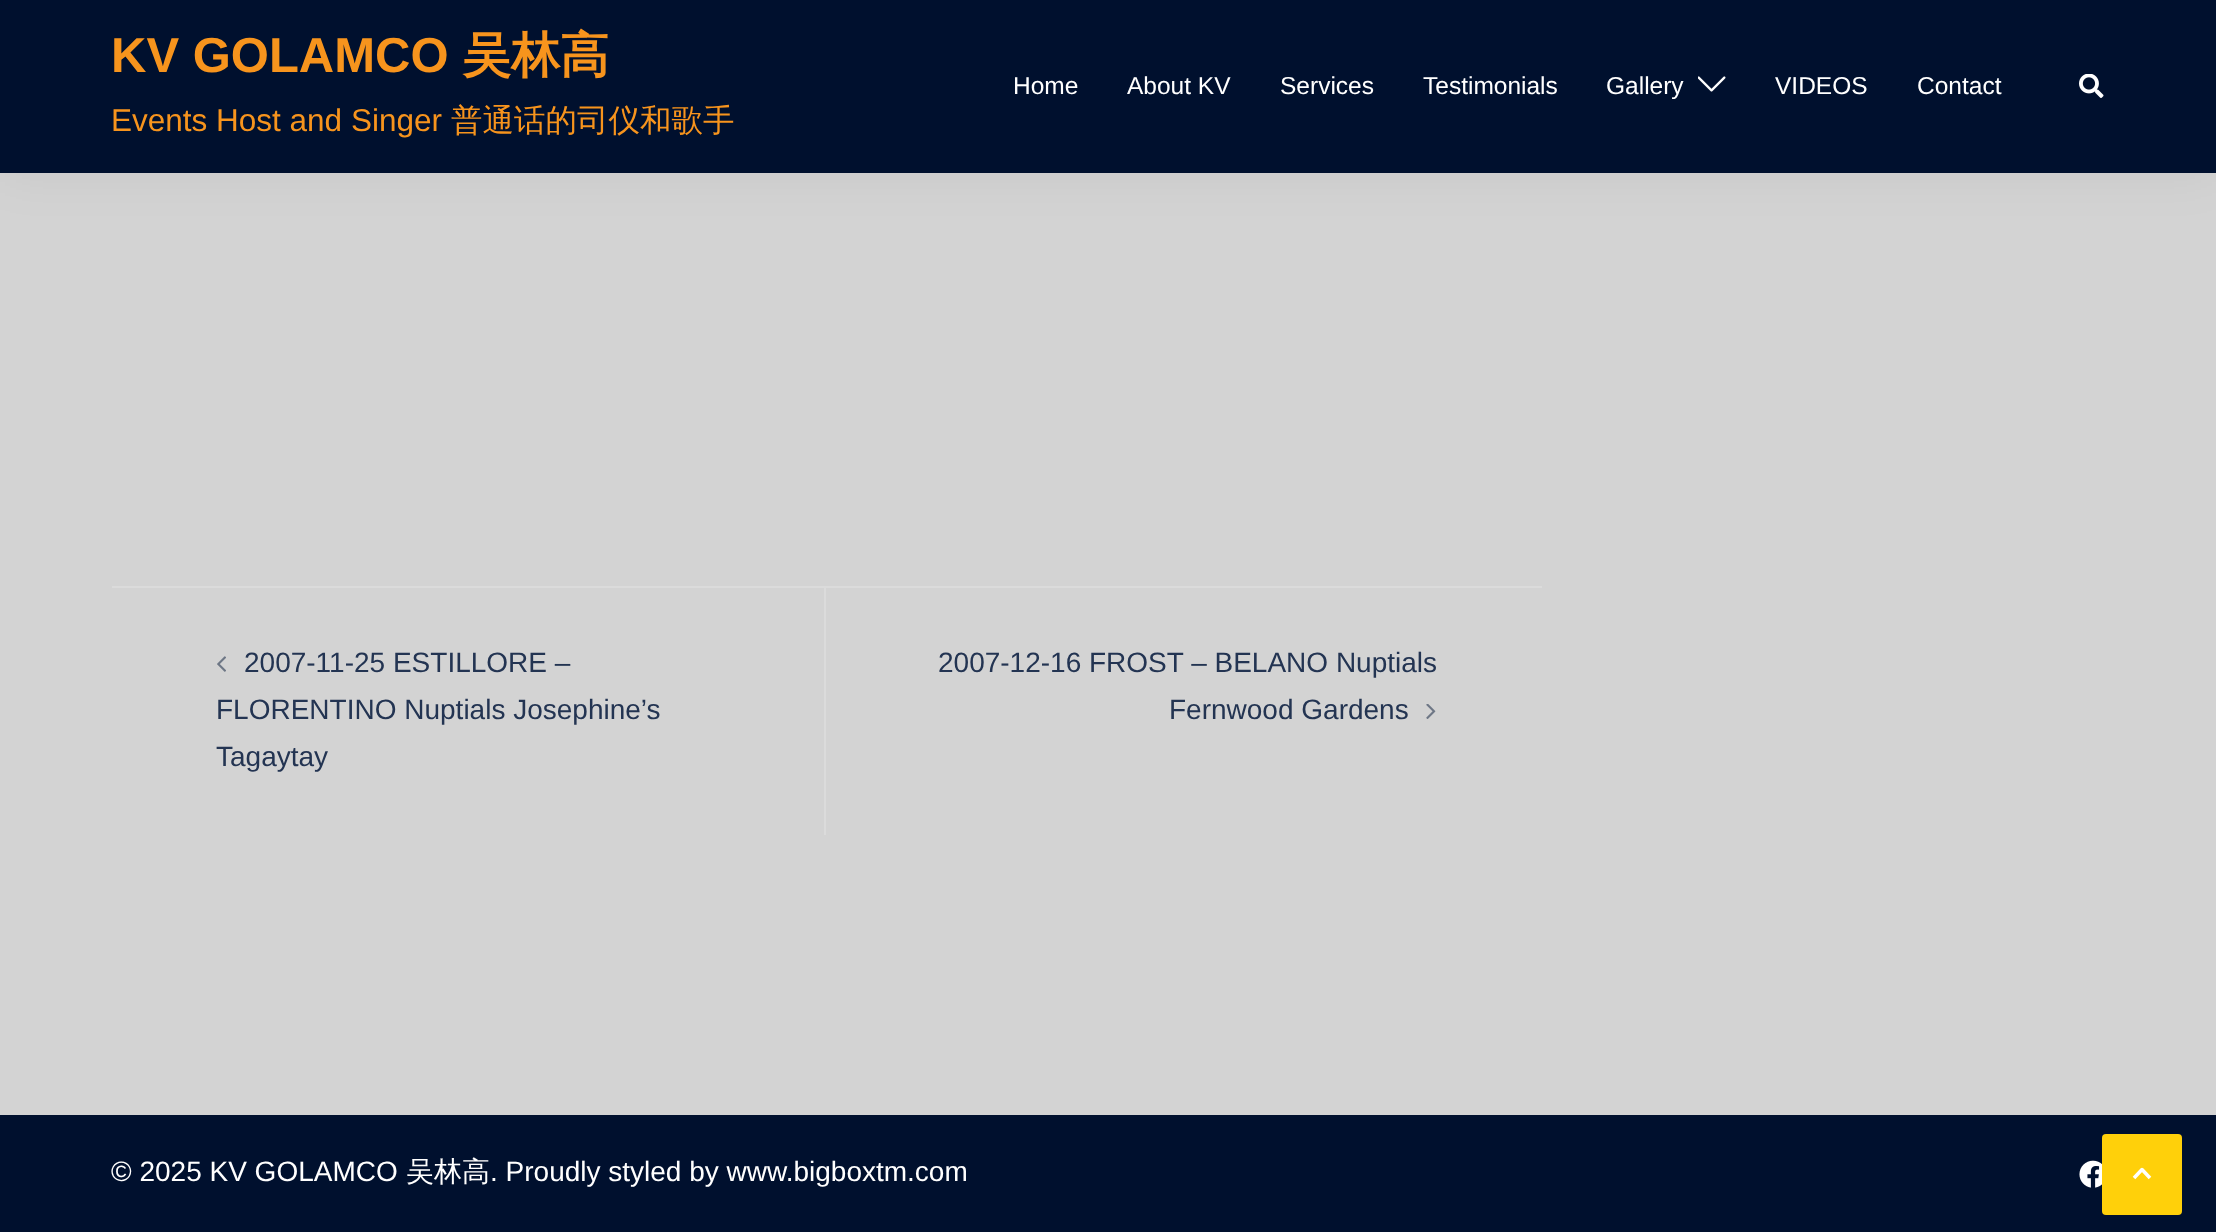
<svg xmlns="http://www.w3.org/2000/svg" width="2216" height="1232">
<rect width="100%" height="100%" fill="#d3d3d3"/>
<rect width="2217" height="173" fill="#0000000d" filter="blur(26px)"/>
<rect width="2216" height="173" fill="#00102e"/>
<text x="111" y="72" style="font-family:Liberation Sans;font-size:49px;font-weight:bold;fill:#f7941d">KV GOLAMCO</text>
<text x="462" y="72" style="font-family:WenQuanYi Zen Hei;font-size:49px;font-weight:bold;fill:#f7941d">吴林高</text>
<text x="111" y="131" style="font-family:Liberation Sans;font-size:31.5px;fill:#f7941d">Events Host and Singer</text>
<text x="451" y="131" style="font-family:WenQuanYi Zen Hei;font-size:31.5px;font-weight:500;fill:#f7941d">普通话的司仪和歌手</text>
<text x="1013" y="94" style="font-family:Liberation Sans;font-size:24.5px;fill:#fff">Home</text>
<text x="1127" y="94" style="font-family:Liberation Sans;font-size:24.5px;fill:#fff">About KV</text>
<text x="1280" y="94" style="font-family:Liberation Sans;font-size:24.5px;fill:#fff">Services</text>
<text x="1423" y="94" style="font-family:Liberation Sans;font-size:24.5px;fill:#fff">Testimonials</text>
<text x="1606" y="94" style="font-family:Liberation Sans;font-size:24.5px;fill:#fff">Gallery</text>
<image x="1698" y="76" width="28" height="16" href="media/1.png"/>
<text x="1775" y="94" style="font-family:Liberation Sans;font-size:24.5px;fill:#fff">VIDEOS</text>
<text x="1917" y="94" style="font-family:Liberation Sans;font-size:24.5px;fill:#fff">Contact</text>
<image x="2079" y="74" width="25" height="24" href="media/2.png"/>
<rect x="112" y="586" width="1430" height="2" fill="#dbdbdb"/>
<rect x="824" y="588" width="2" height="247" fill="#dbdbdb"/>
<image x="217" y="656" width="9" height="16" href="media/3.png"/>
<text x="244" y="672" style="font-family:Liberation Sans;font-size:28px;fill:#233452">2007-11-25 ESTILLORE –</text>
<text x="216" y="719" style="font-family:Liberation Sans;font-size:28px;fill:#233452">FLORENTINO Nuptials Josephine’s</text>
<text x="216" y="766" style="font-family:Liberation Sans;font-size:28px;fill:#233452">Tagaytay</text>
<text x="938" y="672" style="font-family:Liberation Sans;font-size:28px;fill:#233452">2007-12-16 FROST – BELANO Nuptials</text>
<text x="1169" y="719" style="font-family:Liberation Sans;font-size:28px;fill:#233452">Fernwood Gardens</text>
<image x="1426" y="704" width="10" height="15" href="media/4.png"/>
<rect y="1115" width="2216" height="117" fill="#00102e"/>
<text x="111" y="1181" style="font-family:Liberation Sans;font-size:28px;fill:#fff">© 2025 KV GOLAMCO</text>
<text x="406" y="1181" style="font-family:WenQuanYi Zen Hei;font-size:28px;font-weight:500;fill:#fff">吴林高</text>
<text x="490" y="1181" style="font-family:Liberation Sans;font-size:28px;fill:#fff">. Proudly styled by www.bigboxtm.com</text>
<image x="2079" y="1160" width="23" height="28" href="media/5.png"/>
<rect x="2102" y="1134" width="80" height="81" rx="4" fill="#ffd00a"/>
<path d="M2134 1178l8-8.5l8 8.5" fill="none" stroke="#fff" stroke-width="3.5" stroke-linejoin="round"/>
</svg>
